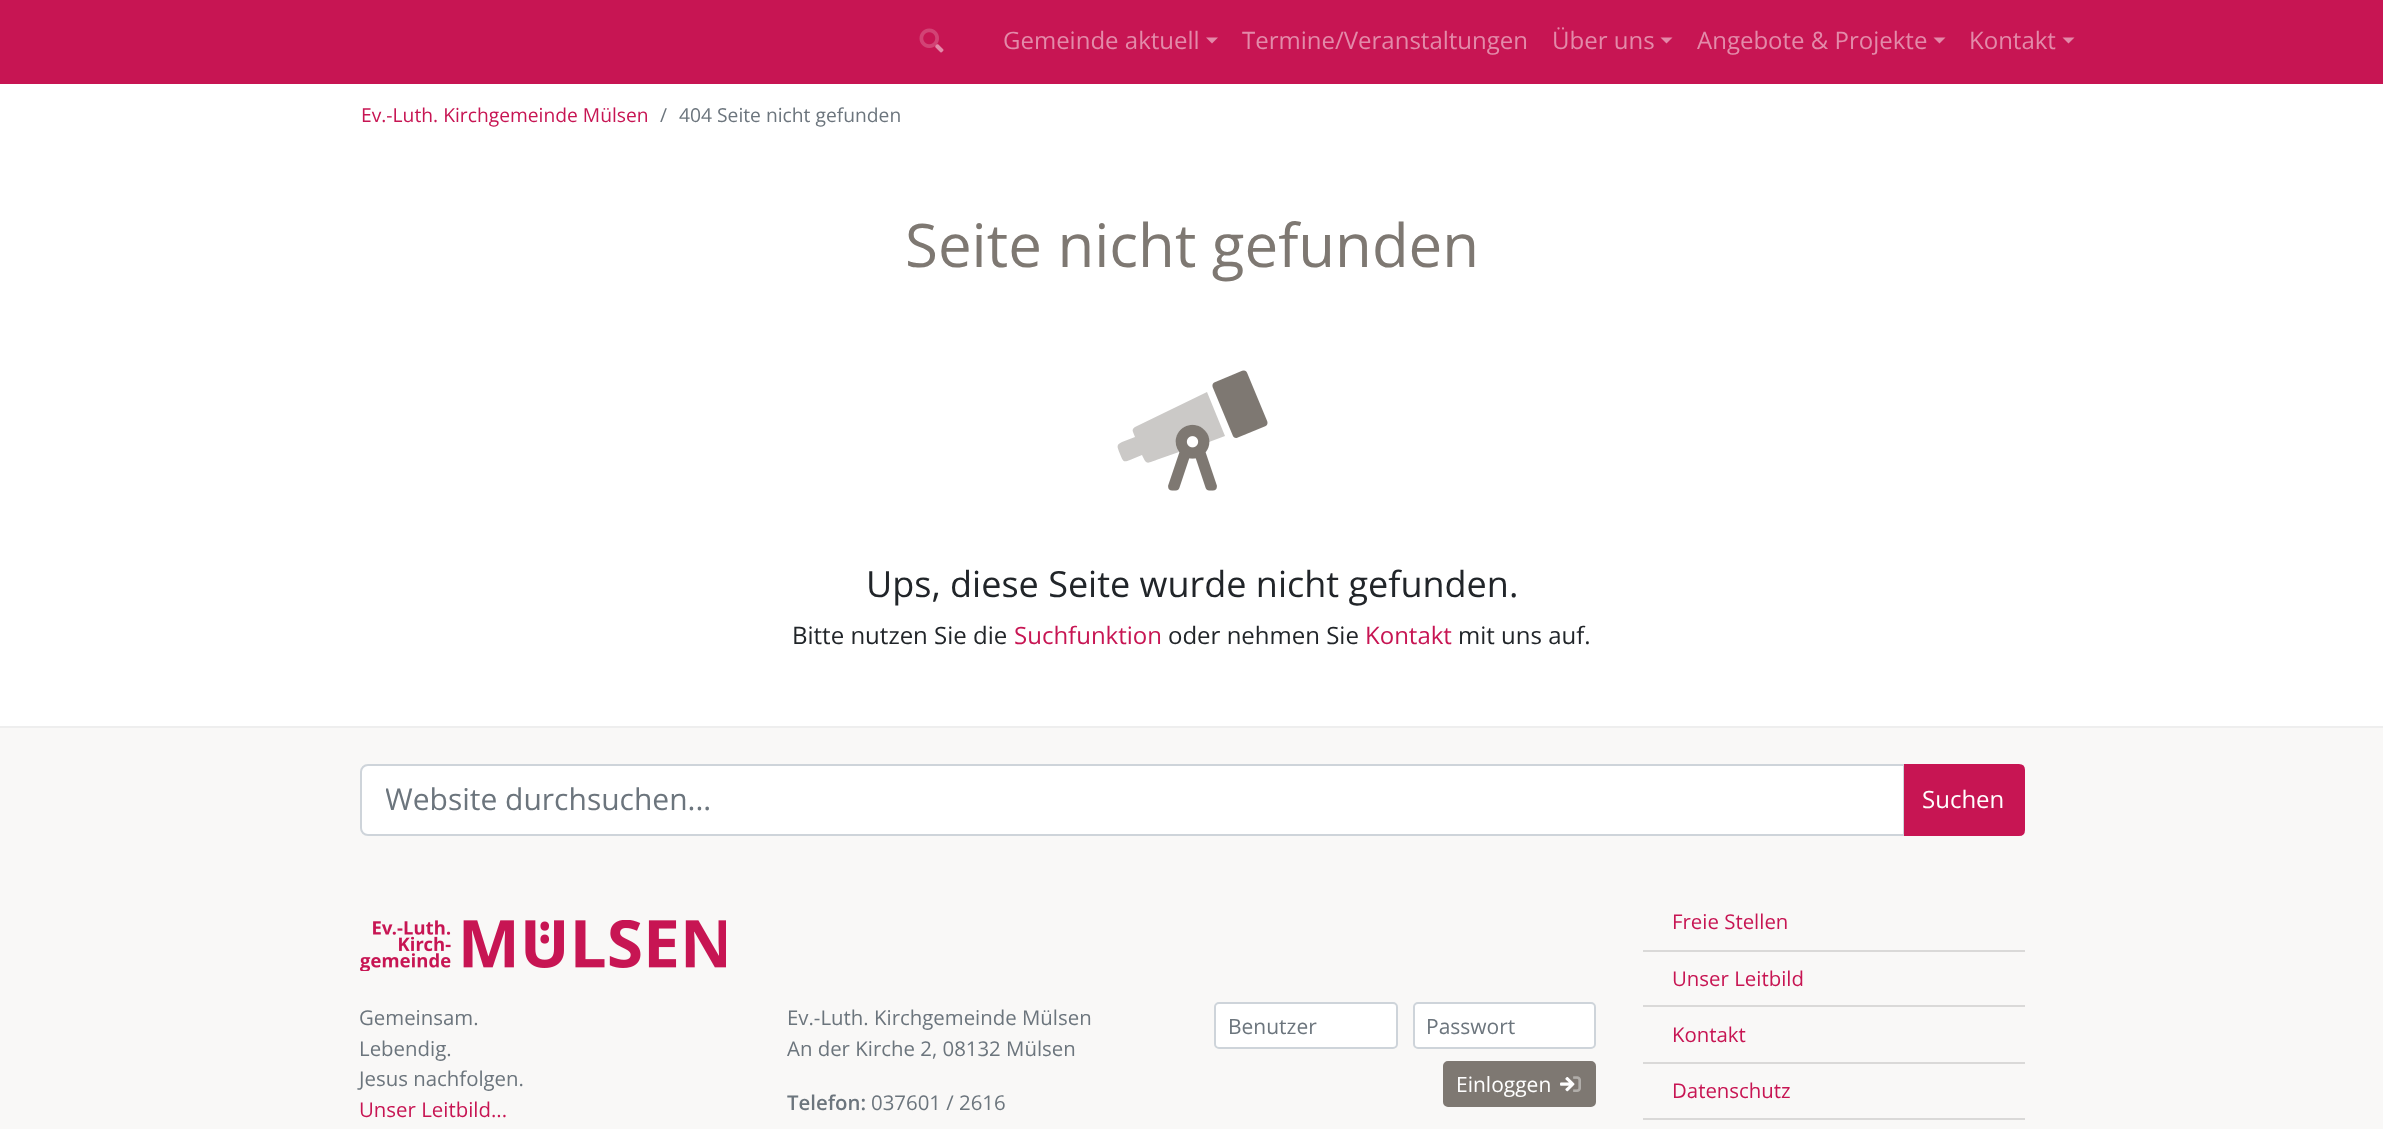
<svg xmlns="http://www.w3.org/2000/svg" width="2383" height="1129">
<defs>
<clipPath id="clip1"><rect x="386" y="779" width="1494" height="40"/></clipPath>
</defs>
<rect width="100%" height="100%" fill="#fff"/>
<rect width="2383" height="84" fill="#c71553"/>
<image x="935" y="44" width="9" height="9" href="media/2.png"/>
<image x="919" y="28" width="20" height="20" href="media/1.png"/>
<text x="1003" y="49" style="font-family:Open Sans;font-size:24px;fill:#e38aa9">Gemeinde aktuell</text>
<path d="M1206 37.5h12l-6 6z" fill="#e38aa9"/>
<text x="1242" y="49" style="font-family:Open Sans;font-size:24px;fill:#e38aa9">Termine/Veranstaltungen</text>
<text x="1552" y="49" style="font-family:Open Sans;font-size:24px;fill:#e38aa9">Über uns</text>
<path d="M1660.5 37.5h12l-6 6z" fill="#e38aa9"/>
<text x="1697" y="49" style="font-family:Open Sans;font-size:24px;fill:#e38aa9">Angebote &amp; Projekte</text>
<path d="M1933.5 37.5h12l-6 6z" fill="#e38aa9"/>
<text x="1969" y="49" style="font-family:Open Sans;font-size:24px;fill:#e38aa9">Kontakt</text>
<path d="M2062.5 37.5h12l-6 6z" fill="#e38aa9"/>
<text x="361" y="122" style="font-family:Open Sans;font-size:19.25px;fill:#c71553">Ev.-Luth. Kirchgemeinde Mülsen</text>
<text x="660" y="122" style="font-family:Open Sans;font-size:19.25px;fill:#6c757d">/</text>
<text x="679" y="122" style="font-family:Open Sans;font-size:19.25px;fill:#6c757d">404 Seite nicht gefunden</text>
<text x="905" y="267" style="font-family:Open Sans;font-size:60px;fill:#7e7872">Seite nicht gefunden</text>
<image x="1168" y="370" width="100" height="121" href="media/3.png"/>
<path d="M1179 452l-20 7c-12 4-12 7-17-4l-12 5c-7 3-7 1-10-6c-2-6-5-9 2-12l13-5l-2-5c-1-2 0-4 2-5l72-35l18 44l-16 6c0-22-32-23-33-1c-1 4 1 8 3 11z" fill="#7e787266"/>
<text x="866" y="597" style="font-family:Open Sans;font-size:36px;fill:#212529">Ups, diese Seite wurde nicht gefunden.</text>
<text x="792" y="644" style="font-family:Open Sans;font-size:24px;fill:#212529">Bitte nutzen Sie die</text>
<text x="1014" y="644" style="font-family:Open Sans;font-size:24px;fill:#c71553">Suchfunktion</text>
<text x="1168" y="644" style="font-family:Open Sans;font-size:24px;fill:#212529">oder nehmen Sie</text>
<text x="1365" y="644" style="font-family:Open Sans;font-size:24px;fill:#c71553">Kontakt</text>
<text x="1458" y="644" style="font-family:Open Sans;font-size:24px;fill:#212529">mit uns auf.</text>
<rect y="728" width="2383" height="401" fill="#f9f8f7"/>
<rect y="726" width="2383" height="2" fill="#eee"/>
<path d="M368 765h1536v70h-1536c-4 0-7-3-7-7v-56c0-4 3-7 7-7z" fill="#fff" stroke="#ced4da" stroke-width="2"/>
<g clip-path="url(#clip1)">
<text x="385" y="810" style="font-family:Open Sans;font-size:30px;fill:#6c757d">Website durchsuchen...</text>
</g>
<path d="M1905 765h114c3 0 5 2 5 5v60c0 3-2 5-5 5h-114z" fill="#c71553" stroke="#c71553" stroke-width="2"/>
<text x="1922" y="808" style="font-family:Open Sans;font-size:24px;fill:#fff">Suchen</text>
<image x="360" y="920" width="366" height="51" href="media/4.png"/>
<text x="359" y="1025" style="font-family:Open Sans;font-size:20.4px;fill:#6c757d">Gemeinsam.</text>
<text x="359" y="1056" style="font-family:Open Sans;font-size:20.4px;fill:#6c757d">Lebendig.</text>
<text x="359" y="1086" style="font-family:Open Sans;font-size:20.4px;fill:#6c757d">Jesus nachfolgen.</text>
<text x="359" y="1117" style="font-family:Open Sans;font-size:20.4px;fill:#c71553">Unser Leitbild...</text>
<text x="787" y="1025" style="font-family:Open Sans;font-size:20.4px;fill:#6c757d">Ev.-Luth. Kirchgemeinde Mülsen</text>
<text x="787" y="1056" style="font-family:Open Sans;font-size:20.4px;fill:#6c757d">An der Kirche 2, 08132 Mülsen</text>
<text x="787" y="1110" style="font-family:Open Sans;font-size:20.4px;font-weight:600;fill:#6c757d">Telefon:</text>
<text x="871" y="1110" style="font-family:Open Sans;font-size:20.4px;fill:#6c757d">037601 / 2616</text>
<rect x="1215" y="1003" width="182" height="45" rx="4" fill="#fff" stroke="#ced4da" stroke-width="2"/>
<text x="1228" y="1034" style="font-family:Open Sans;font-size:21px;fill:#6c757d">Benutzer</text>
<rect x="1414" y="1003" width="181" height="45" rx="4" fill="#fff" stroke="#ced4da" stroke-width="2"/>
<text x="1426" y="1034" style="font-family:Open Sans;font-size:21px;fill:#6c757d">Passwort</text>
<rect x="1444" y="1062" width="151" height="44" rx="4" fill="#7e7872" stroke="#7e7872" stroke-width="2"/>
<text x="1456" y="1092" style="font-family:Open Sans;font-size:21px;fill:#fff">Einloggen</text>
<image x="1560" y="1077" width="15" height="15" href="media/5.png"/>
<image x="1573" y="1076" width="8" height="16" href="media/6.png"/>
<rect x="1643" y="950" width="382" height="2" fill="#dad9d8"/>
<text x="1672" y="929" style="font-family:Open Sans;font-size:20.4px;fill:#c71553">Freie Stellen</text>
<rect x="1643" y="1005" width="382" height="2" fill="#dad9d8"/>
<text x="1672" y="986" style="font-family:Open Sans;font-size:20.4px;fill:#c71553">Unser Leitbild</text>
<rect x="1643" y="1062" width="382" height="2" fill="#dad9d8"/>
<text x="1672" y="1042" style="font-family:Open Sans;font-size:20.4px;fill:#c71553">Kontakt</text>
<rect x="1643" y="1118" width="382" height="2" fill="#dad9d8"/>
<text x="1672" y="1098" style="font-family:Open Sans;font-size:20.4px;fill:#c71553">Datenschutz</text>
</svg>
